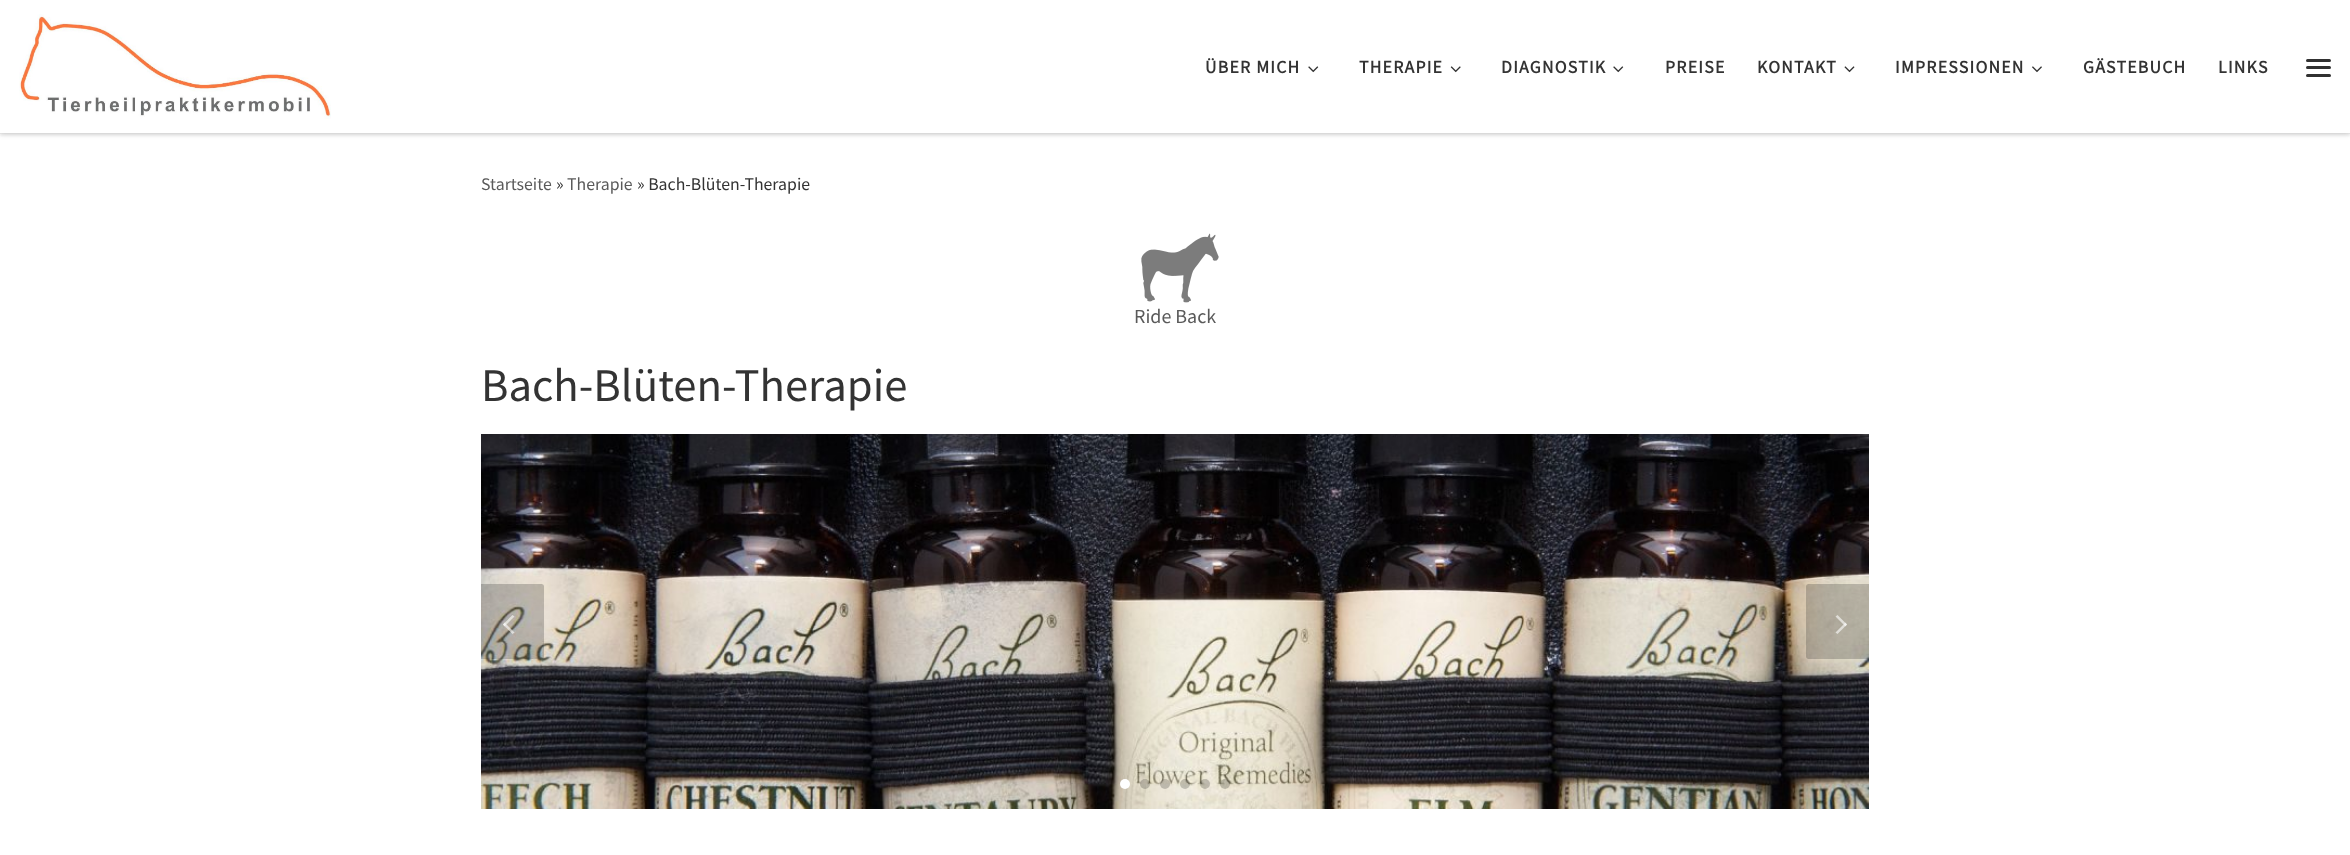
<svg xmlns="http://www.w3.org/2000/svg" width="2350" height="855">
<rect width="100%" height="100%" fill="#fff"/>
<rect y="3" width="2350" height="133" fill="#66666614" filter="blur(1px)"/>
<rect y="133" width="2350" height="1" fill="#ececec"/>
<rect y="133" width="2350" height="1" fill="#ffffff26"/>
<rect width="2350" height="133" fill="#00000033" filter="blur(3px)"/>
<rect width="2350" height="133" fill="#fff"/>
<image x="19" y="14" width="312" height="105" href="media/1.png"/>
<text x="1205" y="73" style="font-family:Source Sans Pro;font-size:17.75px;font-weight:bold;letter-spacing:1.25px;fill:#333">ÜBER MICH</text>
<image x="1308" y="66" width="11" height="7" href="media/2.png"/>
<text x="1359" y="73" style="font-family:Source Sans Pro;font-size:17.75px;font-weight:bold;letter-spacing:1.25px;fill:#333">THERAPIE</text>
<image x="1450" y="66" width="11" height="7" href="media/3.png"/>
<text x="1501" y="73" style="font-family:Source Sans Pro;font-size:17.75px;font-weight:bold;letter-spacing:1.25px;fill:#333">DIAGNOSTIK</text>
<image x="1613" y="66" width="11" height="7" href="media/2.png"/>
<text x="1665" y="73" style="font-family:Source Sans Pro;font-size:17.75px;font-weight:bold;letter-spacing:1.25px;fill:#333">PREISE</text>
<text x="1757" y="73" style="font-family:Source Sans Pro;font-size:17.75px;font-weight:bold;letter-spacing:1.25px;fill:#333">KONTAKT</text>
<image x="1844" y="66" width="11" height="7" href="media/4.png"/>
<text x="1895" y="73" style="font-family:Source Sans Pro;font-size:17.75px;font-weight:bold;letter-spacing:1.25px;fill:#333">IMPRESSIONEN</text>
<image x="2032" y="66" width="10" height="7" href="media/5.png"/>
<text x="2083" y="73" style="font-family:Source Sans Pro;font-size:17.75px;font-weight:bold;letter-spacing:1.25px;fill:#333">GÄSTEBUCH</text>
<text x="2218" y="73" style="font-family:Source Sans Pro;font-size:17.75px;font-weight:bold;letter-spacing:1.25px;fill:#333">LINKS</text>
<rect x="2306" y="59" width="25" height="3" rx="1.5" fill="#313131"/>
<rect x="2306" y="66" width="25" height="3" rx="1.5" fill="#313131"/>
<rect x="2306" y="74" width="25" height="3" rx="1.5" fill="#313131"/>
<text x="481" y="190" style="font-family:Source Sans Pro;font-size:17.75px;fill:#5a5a5a">Startseite</text>
<text x="556" y="190" style="font-family:Source Sans Pro;font-size:17.75px;fill:#333">»</text>
<text x="567" y="190" style="font-family:Source Sans Pro;font-size:17.75px;fill:#5a5a5a">Therapie</text>
<text x="637" y="190" style="font-family:Source Sans Pro;font-size:17.75px;fill:#333">» Bach-Blüten-Therapie</text>
<image x="1141" y="233" width="78" height="70" href="media/6.png"/>
<text x="1134" y="323" style="font-family:Source Sans Pro;font-size:20px;fill:#5a5a5a">Ride Back</text>
<text x="481" y="401" style="font-family:Source Sans Pro;font-size:46.75px;fill:#333">Bach-Blüten-Therapie</text>
<image x="481" y="434" width="1388" height="375" href="media/7.png"/>
<path d="M481 584h60.5c1.5 0 2.5 1 2.5 2.5v70c0 1.5-1 2.5-2.5 2.5h-60.5z" fill="#2020203d"/>
<path d="M514.5 632.5l-2 1.5l-9.5-9.5l1.5-2z" fill="#ffffff99"/>
<path d="M514.5 616.5l-10 10l-1.5-2l9.5-9.5z" fill="#ffffff99"/>
<path d="M1808.5 584h60.5v75h-60.5c-1.5 0-2.5-1-2.5-2.5v-70c0-1.5 1-2.5 2.5-2.5z" fill="#2020203d"/>
<path d="M1835.5 616.5l2-1.5l9.5 9.5l-1.5 2z" fill="#ffffff99"/>
<path d="M1835.5 632.5l10-10l1.5 2l-9.5 9.5z" fill="#ffffff99"/>
<circle cx="1125" cy="784" r="5" fill="#fff"/>
<circle cx="1145" cy="784" r="5" fill="#00000033"/>
<circle cx="1165" cy="784" r="5" fill="#00000033"/>
<circle cx="1185" cy="784" r="5" fill="#00000033"/>
<circle cx="1205" cy="784" r="5" fill="#00000033"/>
<circle cx="1225" cy="784" r="5" fill="#00000033"/>
</svg>
